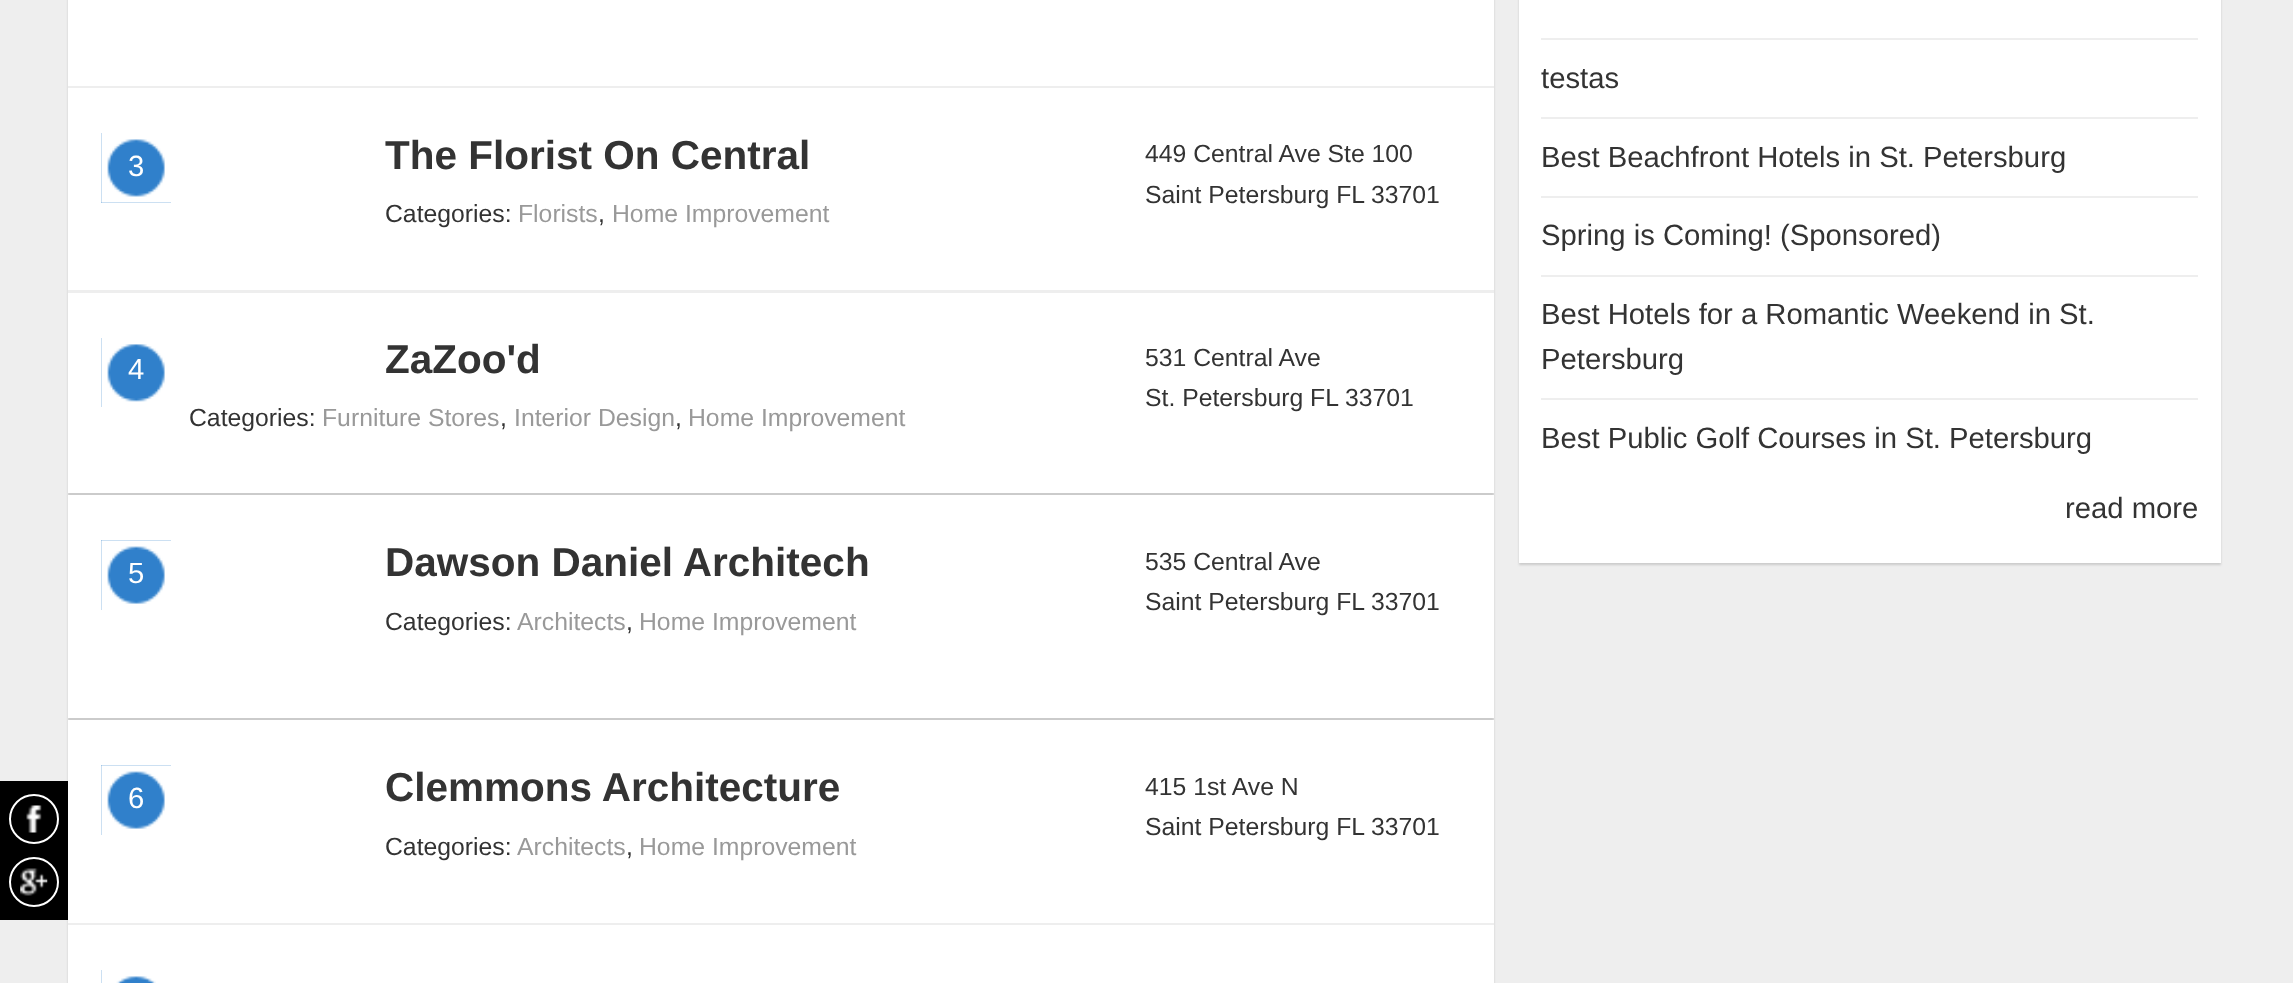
<svg xmlns="http://www.w3.org/2000/svg" width="2293" height="983">
<defs>
<clipPath id="clip1"><path d="M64 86h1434v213h-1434zm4 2h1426v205h-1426z" clip-rule="evenodd"/></clipPath>
</defs>
<rect width="100%" height="100%" fill="#eee"/>
<rect x="68" y="722" width="1426" height="205" fill="#cbcbcb" filter="blur(1px)"/>
<rect y="781" width="68" height="139" fill="#000"/>
<circle cx="34" cy="819" r="24" fill="none" stroke="#fff" stroke-width="2"/>
<image x="26" y="805" width="16" height="28" href="media/1.png"/>
<circle cx="34" cy="882" r="24" fill="none" stroke="#fff" stroke-width="2"/>
<image x="20" y="868" width="28" height="28" href="media/2.png"/>
<rect x="68" y="-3" width="1426" height="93" fill="#cbcbcb" filter="blur(1px)"/>
<rect x="68" width="1426" height="86" fill="#fff"/>
<rect x="68" y="86" width="1426" height="2" fill="#eee"/>
<g clip-path="url(#clip1)">
<rect x="68" y="90" width="1426" height="205" fill="#cbcbcb" filter="blur(1px)"/>
</g>
<rect x="68" y="88" width="1426" height="202" fill="#fff"/>
<rect x="101" y="133" width="70" height="70" fill="#3080cb"/>
<image x="101" y="133" width="70" height="70" href="media/3.png"/>
<text x="128" y="176" style="font-family:Liberation Sans;font-size:29.25px;fill:#fff">3</text>
<text x="385" y="169" style="font-family:Liberation Sans;font-size:40.5px;font-weight:bold;fill:#333">The Florist On Central</text>
<text x="385" y="222" style="font-family:Liberation Sans;font-size:24.75px;fill:#333">Categories:</text>
<text x="518" y="222" style="font-family:Liberation Sans;font-size:24.75px;fill:#999">Florists</text>
<text x="598" y="222" style="font-family:Liberation Sans;font-size:24.75px;fill:#333">,</text>
<text x="612" y="222" style="font-family:Liberation Sans;font-size:24.75px;fill:#999">Home Improvement</text>
<text x="1145" y="162" style="font-family:Liberation Sans;font-size:24.75px;fill:#333">449 Central Ave Ste 100</text>
<text x="1145" y="203" style="font-family:Liberation Sans;font-size:24.75px;fill:#333">Saint Petersburg FL</text>
<text x="1371" y="203" style="font-family:Liberation Sans;font-size:24.75px;fill:#333">33701</text>
<rect x="68" y="295" width="1426" height="202" fill="#cbcbcb" filter="blur(1px)"/>
<rect x="68" y="293" width="1426" height="200" fill="#fff"/>
<rect x="101" y="338" width="64" height="69" fill="#3080cb"/>
<image x="101" y="338" width="70" height="69" href="media/4.png"/>
<text x="128" y="379" style="font-family:Liberation Sans;font-size:29.25px;fill:#fff">4</text>
<text x="385" y="373" style="font-family:Liberation Sans;font-size:40.5px;font-weight:bold;fill:#333">ZaZoo'd</text>
<text x="189" y="426" style="font-family:Liberation Sans;font-size:24.75px;fill:#333">Categories:</text>
<text x="322" y="426" style="font-family:Liberation Sans;font-size:24.75px;fill:#999">Furniture Stores</text>
<text x="500" y="426" style="font-family:Liberation Sans;font-size:24.75px;fill:#333">,</text>
<text x="514" y="426" style="font-family:Liberation Sans;font-size:24.75px;fill:#999">Interior Design</text>
<text x="675" y="426" style="font-family:Liberation Sans;font-size:24.75px;fill:#333">,</text>
<text x="688" y="426" style="font-family:Liberation Sans;font-size:24.75px;fill:#999">Home Improvement</text>
<text x="1145" y="366" style="font-family:Liberation Sans;font-size:24.75px;fill:#333">531 Central Ave</text>
<text x="1145" y="406" style="font-family:Liberation Sans;font-size:24.75px;fill:#333">St. Petersburg FL</text>
<text x="1345" y="406" style="font-family:Liberation Sans;font-size:24.75px;fill:#333">33701</text>
<rect x="68" y="497" width="1426" height="225" fill="#cbcbcb" filter="blur(1px)"/>
<rect x="68" y="495" width="1426" height="223" fill="#fff"/>
<rect x="101" y="540" width="70" height="70" fill="#3080cb"/>
<image x="101" y="540" width="70" height="70" href="media/5.png"/>
<text x="128" y="583" style="font-family:Liberation Sans;font-size:29.25px;fill:#fff">5</text>
<text x="385" y="576" style="font-family:Liberation Sans;font-size:40.5px;font-weight:bold;fill:#333">Dawson Daniel Architech</text>
<text x="385" y="630" style="font-family:Liberation Sans;font-size:24.75px;fill:#333">Categories:</text>
<text x="517" y="630" style="font-family:Liberation Sans;font-size:24.75px;fill:#999">Architects</text>
<text x="626" y="630" style="font-family:Liberation Sans;font-size:24.75px;fill:#333">,</text>
<text x="639" y="630" style="font-family:Liberation Sans;font-size:24.75px;fill:#999">Home Improvement</text>
<text x="1145" y="570" style="font-family:Liberation Sans;font-size:24.75px;fill:#333">535 Central Ave</text>
<text x="1145" y="610" style="font-family:Liberation Sans;font-size:24.75px;fill:#333">Saint Petersburg FL</text>
<text x="1371" y="610" style="font-family:Liberation Sans;font-size:24.75px;fill:#333">33701</text>
<rect x="68" y="720" width="1426" height="203" fill="#fff"/>
<rect x="68" y="923" width="1426" height="2" fill="#eee"/>
<rect x="101" y="765" width="70" height="70" fill="#3080cb"/>
<image x="101" y="765" width="70" height="70" href="media/5.png"/>
<text x="128" y="808" style="font-family:Liberation Sans;font-size:29.25px;fill:#fff">6</text>
<text x="385" y="801" style="font-family:Liberation Sans;font-size:40.5px;font-weight:bold;fill:#333">Clemmons Architecture</text>
<text x="385" y="855" style="font-family:Liberation Sans;font-size:24.75px;fill:#333">Categories:</text>
<text x="517" y="855" style="font-family:Liberation Sans;font-size:24.75px;fill:#999">Architects</text>
<text x="626" y="855" style="font-family:Liberation Sans;font-size:24.75px;fill:#333">,</text>
<text x="639" y="855" style="font-family:Liberation Sans;font-size:24.75px;fill:#999">Home Improvement</text>
<text x="1145" y="795" style="font-family:Liberation Sans;font-size:24.75px;fill:#333">415 1st Ave N</text>
<text x="1145" y="835" style="font-family:Liberation Sans;font-size:24.75px;fill:#333">Saint Petersburg FL</text>
<text x="1371" y="835" style="font-family:Liberation Sans;font-size:24.75px;fill:#333">33701</text>
<rect x="68" y="927" width="1426" height="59" fill="#cbcbcb" filter="blur(1px)"/>
<rect x="68" y="925" width="1426" height="58" fill="#fff"/>
<rect x="101" y="970" width="55" height="13" fill="#3080cb"/>
<image x="101" y="970" width="70" height="13" href="media/6.png"/>
<rect x="1519" y="-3" width="702" height="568" fill="#cbcbcb" filter="blur(1px)"/>
<rect x="1519" width="702" height="563" fill="#fff"/>
<rect x="1541" y="38" width="657" height="2" fill="#eee"/>
<text x="1541" y="88" style="font-family:Liberation Sans;font-size:29.25px;fill:#333">testas</text>
<rect x="1541" y="117" width="657" height="2" fill="#eee"/>
<text x="1541" y="167" style="font-family:Liberation Sans;font-size:29.25px;fill:#333">Best Beachfront Hotels in St. Petersburg</text>
<rect x="1541" y="196" width="657" height="2" fill="#eee"/>
<text x="1541" y="245" style="font-family:Liberation Sans;font-size:29.25px;fill:#333">Spring is Coming! (Sponsored)</text>
<rect x="1541" y="275" width="657" height="2" fill="#eee"/>
<text x="1541" y="324" style="font-family:Liberation Sans;font-size:29.25px;fill:#333">Best Hotels for a Romantic Weekend in St.</text>
<text x="1541" y="369" style="font-family:Liberation Sans;font-size:29.25px;fill:#333">Petersburg</text>
<rect x="1541" y="398" width="657" height="2" fill="#eee"/>
<text x="1541" y="448" style="font-family:Liberation Sans;font-size:29.25px;fill:#333">Best Public Golf Courses in St. Petersburg</text>
<text x="2065" y="518" style="font-family:Liberation Sans;font-size:29.25px;fill:#333">read more</text>
</svg>
